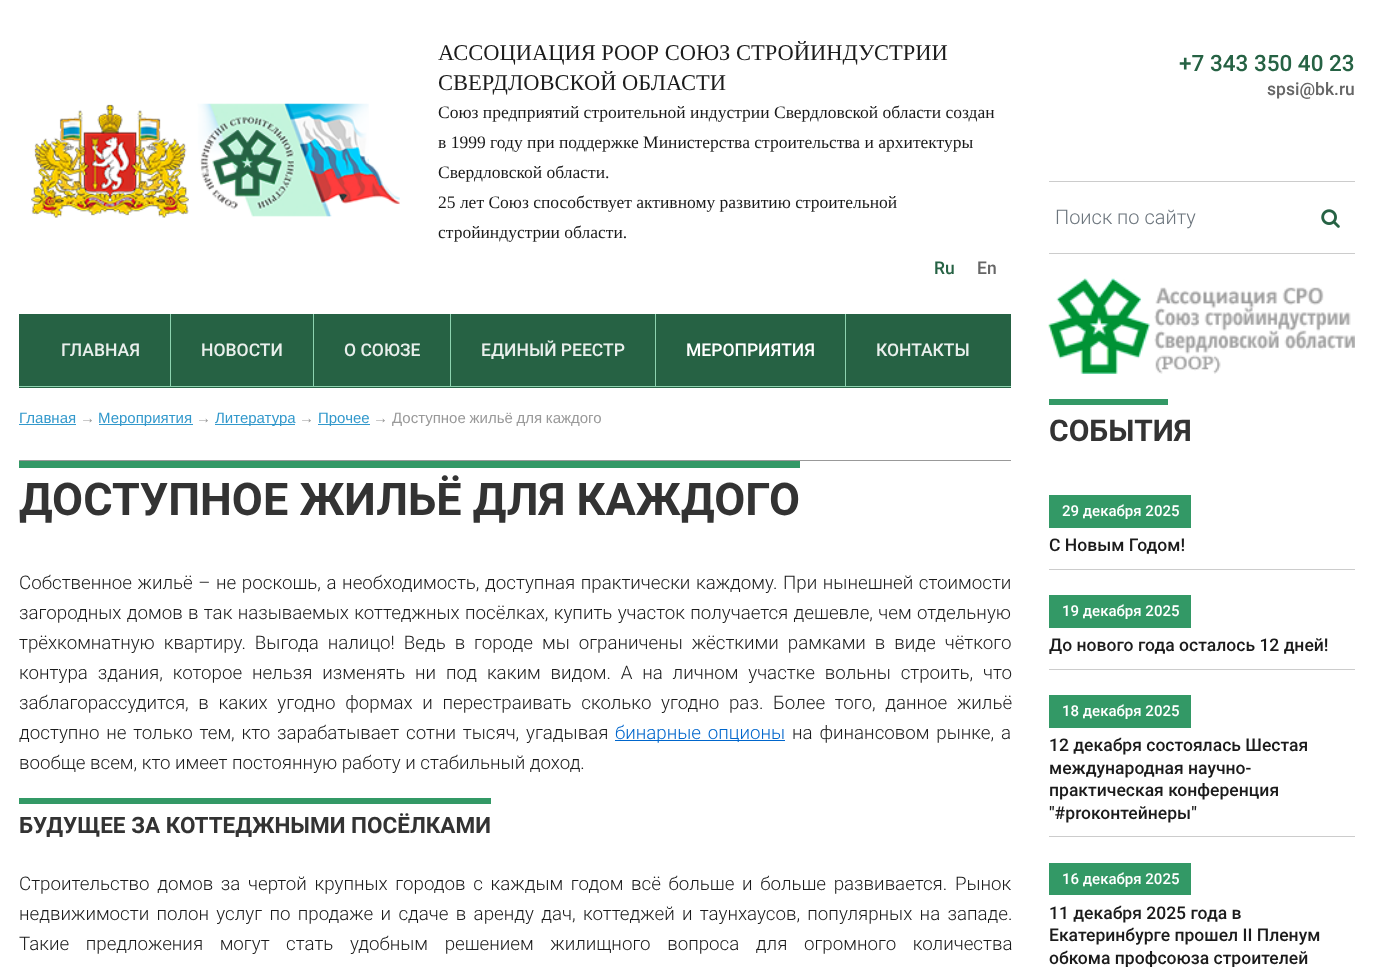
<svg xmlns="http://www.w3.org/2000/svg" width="1373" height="967">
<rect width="100%" height="100%" fill="#fff"/>
<image x="31" y="103" width="369" height="115" href="media/1.png"/>
<text x="438" y="60" style="font-family:Liberation Serif;font-size:22.5px;fill:#1b1b1b">АССОЦИАЦИЯ РООР СОЮЗ СТРОЙИНДУСТРИИ</text>
<text x="438" y="90" style="font-family:Liberation Serif;font-size:22.5px;fill:#1b1b1b">СВЕРДЛОВСКОЙ ОБЛАСТИ</text>
<text x="438" y="118" style="font-family:Liberation Serif;font-size:17.5px;fill:#1b1b1b">Союз предприятий строительной индустрии Свердловской области создан</text>
<text x="438" y="148" style="font-family:Liberation Serif;font-size:17.5px;fill:#1b1b1b">в 1999 году при поддержке Министерства строительства и архитектуры</text>
<text x="438" y="178" style="font-family:Liberation Serif;font-size:17.5px;fill:#1b1b1b">Свердловской области.</text>
<text x="438" y="208" style="font-family:Liberation Serif;font-size:17.5px;fill:#1b1b1b">25 лет Союз способствует активному развитию строительной</text>
<text x="438" y="238" style="font-family:Liberation Serif;font-size:17.5px;fill:#1b1b1b">стройиндустрии области.</text>
<text x="934" y="274" style="font-family:Roboto;font-size:17.5px;font-weight:500;fill:#266244">Ru</text>
<text x="977" y="274" style="font-family:Roboto;font-size:17.5px;font-weight:500;fill:#666">En</text>
<rect x="19" y="314" width="992" height="74" fill="#266244"/>
<rect x="19" y="386" width="992" height="1" fill="#8dd3b0"/>
<rect x="170" y="314" width="1" height="72" fill="#8dd3b0"/>
<text x="61" y="356" style="font-family:Roboto;font-size:17.5px;font-weight:500;fill:#e9efec">ГЛАВНАЯ</text>
<rect x="313" y="314" width="1" height="72" fill="#8dd3b0"/>
<text x="201" y="356" style="font-family:Roboto;font-size:17.5px;font-weight:500;fill:#e9efec">НОВОСТИ</text>
<rect x="450" y="314" width="1" height="72" fill="#8dd3b0"/>
<text x="344" y="356" style="font-family:Roboto;font-size:17.5px;font-weight:500;fill:#e9efec">О СОЮЗЕ</text>
<rect x="655" y="314" width="1" height="72" fill="#8dd3b0"/>
<text x="481" y="356" style="font-family:Roboto;font-size:17.5px;font-weight:500;fill:#e9efec">ЕДИНЫЙ РЕЕСТР</text>
<rect x="845" y="314" width="1" height="72" fill="#8dd3b0"/>
<text x="686" y="356" style="font-family:Roboto;font-size:17.5px;font-weight:500;fill:#fff">МЕРОПРИЯТИЯ</text>
<text x="876" y="356" style="font-family:Roboto;font-size:17.5px;font-weight:500;fill:#e9efec">КОНТАКТЫ</text>
<text x="19" y="423" style="font-family:Liberation Sans;font-size:15px;fill:#39c">Главная</text>
<rect x="19" y="424" width="57" height="1" fill="#39c"/>
<text x="80" y="423" style="font-family:Liberation Sans;font-size:15px;fill:#999">→</text>
<rect x="99" y="424" width="94" height="1" fill="#39c"/>
<text x="98" y="423" style="font-family:Liberation Sans;font-size:15px;fill:#39c">Мероприятия</text>
<text x="196" y="423" style="font-family:Liberation Sans;font-size:15px;fill:#999">→</text>
<rect x="215" y="424" width="80" height="1" fill="#39c"/>
<text x="215" y="423" style="font-family:Liberation Sans;font-size:15px;fill:#39c">Литература</text>
<text x="299" y="423" style="font-family:Liberation Sans;font-size:15px;fill:#999">→</text>
<rect x="318" y="424" width="52" height="1" fill="#39c"/>
<text x="318" y="423" style="font-family:Liberation Sans;font-size:15px;fill:#39c">Прочее</text>
<text x="373" y="423" style="font-family:Liberation Sans;font-size:15px;fill:#999">→</text>
<text x="392" y="423" word-spacing="-0.5" style="font-family:Liberation Sans;font-size:15px;fill:#999">Доступное жильё для каждого</text>
<rect x="19" y="460" width="992" height="1" fill="#999"/>
<rect x="19" y="461" width="781" height="7" fill="#396"/>
<text x="19" y="515" style="font-family:Roboto;font-size:45px;font-weight:bold;fill:#333">ДОСТУПНОЕ ЖИЛЬЁ ДЛЯ КАЖДОГО</text>
<text x="19" y="589" word-spacing="1" style="font-family:Roboto;font-size:18.75px;font-weight:300;fill:#1b1b1b">Собственное жильё – не роскошь, а необходимость, доступная практически каждому. При нынешней стоимости</text>
<text x="19" y="619" word-spacing="0.75" style="font-family:Roboto;font-size:18.75px;font-weight:300;fill:#1b1b1b">загородных домов в так называемых коттеджных посёлках, купить участок получается дешевле, чем отдельную</text>
<text x="19" y="649" word-spacing="4.4" style="font-family:Roboto;font-size:18.75px;font-weight:300;fill:#1b1b1b">трёхкомнатную квартиру. Выгода налицо! Ведь в городе мы ограничены жёсткими рамками в виде чёткого</text>
<text x="19" y="679" word-spacing="5.25" style="font-family:Roboto;font-size:18.75px;font-weight:300;fill:#1b1b1b">контура здания, которое нельзя изменять ни под каким видом. А на личном участке вольны строить, что</text>
<text x="19" y="709" word-spacing="5.1" style="font-family:Roboto;font-size:18.75px;font-weight:300;fill:#1b1b1b">заблагорассудится, в каких угодно формах и перестраивать сколько угодно раз. Более того, данное жильё</text>
<text x="19" y="739" word-spacing="2.25" style="font-family:Roboto;font-size:18.75px;font-weight:300;fill:#1b1b1b">доступно не только тем, кто зарабатывает сотни тысяч, угадывая</text>
<rect x="615" y="740" width="170" height="1" fill="#06c"/>
<text x="615" y="739" word-spacing="2.25" style="font-family:Roboto;font-size:18.75px;font-weight:300;fill:#06c">бинарные опционы</text>
<text x="792" y="739" word-spacing="2.25" style="font-family:Roboto;font-size:18.75px;font-weight:300;fill:#1b1b1b">на финансовом рынке, а</text>
<text x="19" y="769" style="font-family:Roboto;font-size:18.75px;font-weight:300;fill:#1b1b1b">вообще всем, кто имеет постоянную работу и стабильный доход.</text>
<rect x="19" y="798" width="472" height="6" fill="#396"/>
<text x="19" y="833" style="font-family:Roboto;font-size:22.5px;font-weight:bold;fill:#333">БУДУЩЕЕ ЗА КОТТЕДЖНЫМИ ПОСЁЛКАМИ</text>
<text x="19" y="890" word-spacing="3.1" style="font-family:Roboto;font-size:18.75px;font-weight:300;fill:#1b1b1b">Строительство домов за чертой крупных городов с каждым годом всё больше и больше развивается. Рынок</text>
<text x="19" y="920" word-spacing="2.75" style="font-family:Roboto;font-size:18.75px;font-weight:300;fill:#1b1b1b">недвижимости полон услуг по продаже и сдаче в аренду дач, коттеджей и таунхаусов, популярных на западе.</text>
<text x="19" y="950" word-spacing="12" style="font-family:Roboto;font-size:18.75px;font-weight:300;fill:#1b1b1b">Такие предложения могут стать удобным решением жилищного вопроса для огромного количества</text>
<text x="1179" y="71" style="font-family:Roboto;font-size:22.5px;font-weight:500;fill:#266244">+7 343 350 40 23</text>
<text x="1267" y="95" style="font-family:Roboto;font-size:17.5px;font-weight:500;fill:#666">spsi@bk.ru</text>
<rect x="1049" y="181" width="306" height="1" fill="#ccc"/>
<rect x="1049" y="253" width="306" height="1" fill="#ccc"/>
<text x="1055" y="224" style="font-family:Roboto;font-size:20px;font-weight:300;fill:#6c757d">Поиск по сайту</text>
<image x="1321" y="209" width="19" height="19" href="media/2.png"/>
<image x="1048" y="278" width="307" height="96" href="media/3.png"/>
<rect x="1049" y="399" width="119" height="6" fill="#396"/>
<text x="1049" y="441" style="font-family:Roboto;font-size:30px;font-weight:bold;fill:#333">СОБЫТИЯ</text>
<rect x="1049" y="569" width="306" height="1" fill="#ccc"/>
<rect x="1049" y="495" width="142" height="33" fill="#396"/>
<text x="1062" y="516" style="font-family:Roboto;font-size:15px;font-weight:500;fill:#fff">29 декабря 2025</text>
<text x="1049" y="551" style="font-family:Roboto;font-size:17.5px;font-weight:500;fill:#1b1b1b">С Новым Годом!</text>
<rect x="1049" y="669" width="306" height="1" fill="#ccc"/>
<rect x="1049" y="595" width="142" height="33" fill="#396"/>
<text x="1062" y="616" style="font-family:Roboto;font-size:15px;font-weight:500;fill:#fff">19 декабря 2025</text>
<text x="1049" y="651" style="font-family:Roboto;font-size:17.5px;font-weight:500;fill:#1b1b1b">До нового года осталось 12 дней!</text>
<rect x="1049" y="836" width="306" height="1" fill="#ccc"/>
<rect x="1049" y="695" width="142" height="33" fill="#396"/>
<text x="1062" y="716" style="font-family:Roboto;font-size:15px;font-weight:500;fill:#fff">18 декабря 2025</text>
<text x="1049" y="751" style="font-family:Roboto;font-size:17.5px;font-weight:500;fill:#1b1b1b">12 декабря состоялась Шестая</text>
<text x="1049" y="774" style="font-family:Roboto;font-size:17.5px;font-weight:500;fill:#1b1b1b">международная научно-</text>
<text x="1049" y="796" style="font-family:Roboto;font-size:17.5px;font-weight:500;fill:#1b1b1b">практическая конференция</text>
<text x="1049" y="819" style="font-family:Roboto;font-size:17.5px;font-weight:500;fill:#1b1b1b">"#proконтейнеры"</text>
<rect x="1049" y="863" width="142" height="32" fill="#396"/>
<text x="1062" y="884" style="font-family:Roboto;font-size:15px;font-weight:500;fill:#fff">16 декабря 2025</text>
<text x="1049" y="919" style="font-family:Roboto;font-size:17.5px;font-weight:500;fill:#1b1b1b">11 декабря 2025 года в</text>
<text x="1049" y="941" style="font-family:Roboto;font-size:17.5px;font-weight:500;fill:#1b1b1b">Екатеринбурге прошел II Пленум</text>
<text x="1049" y="964" style="font-family:Roboto;font-size:17.5px;font-weight:500;fill:#1b1b1b">обкома профсоюза строителей</text>
</svg>
